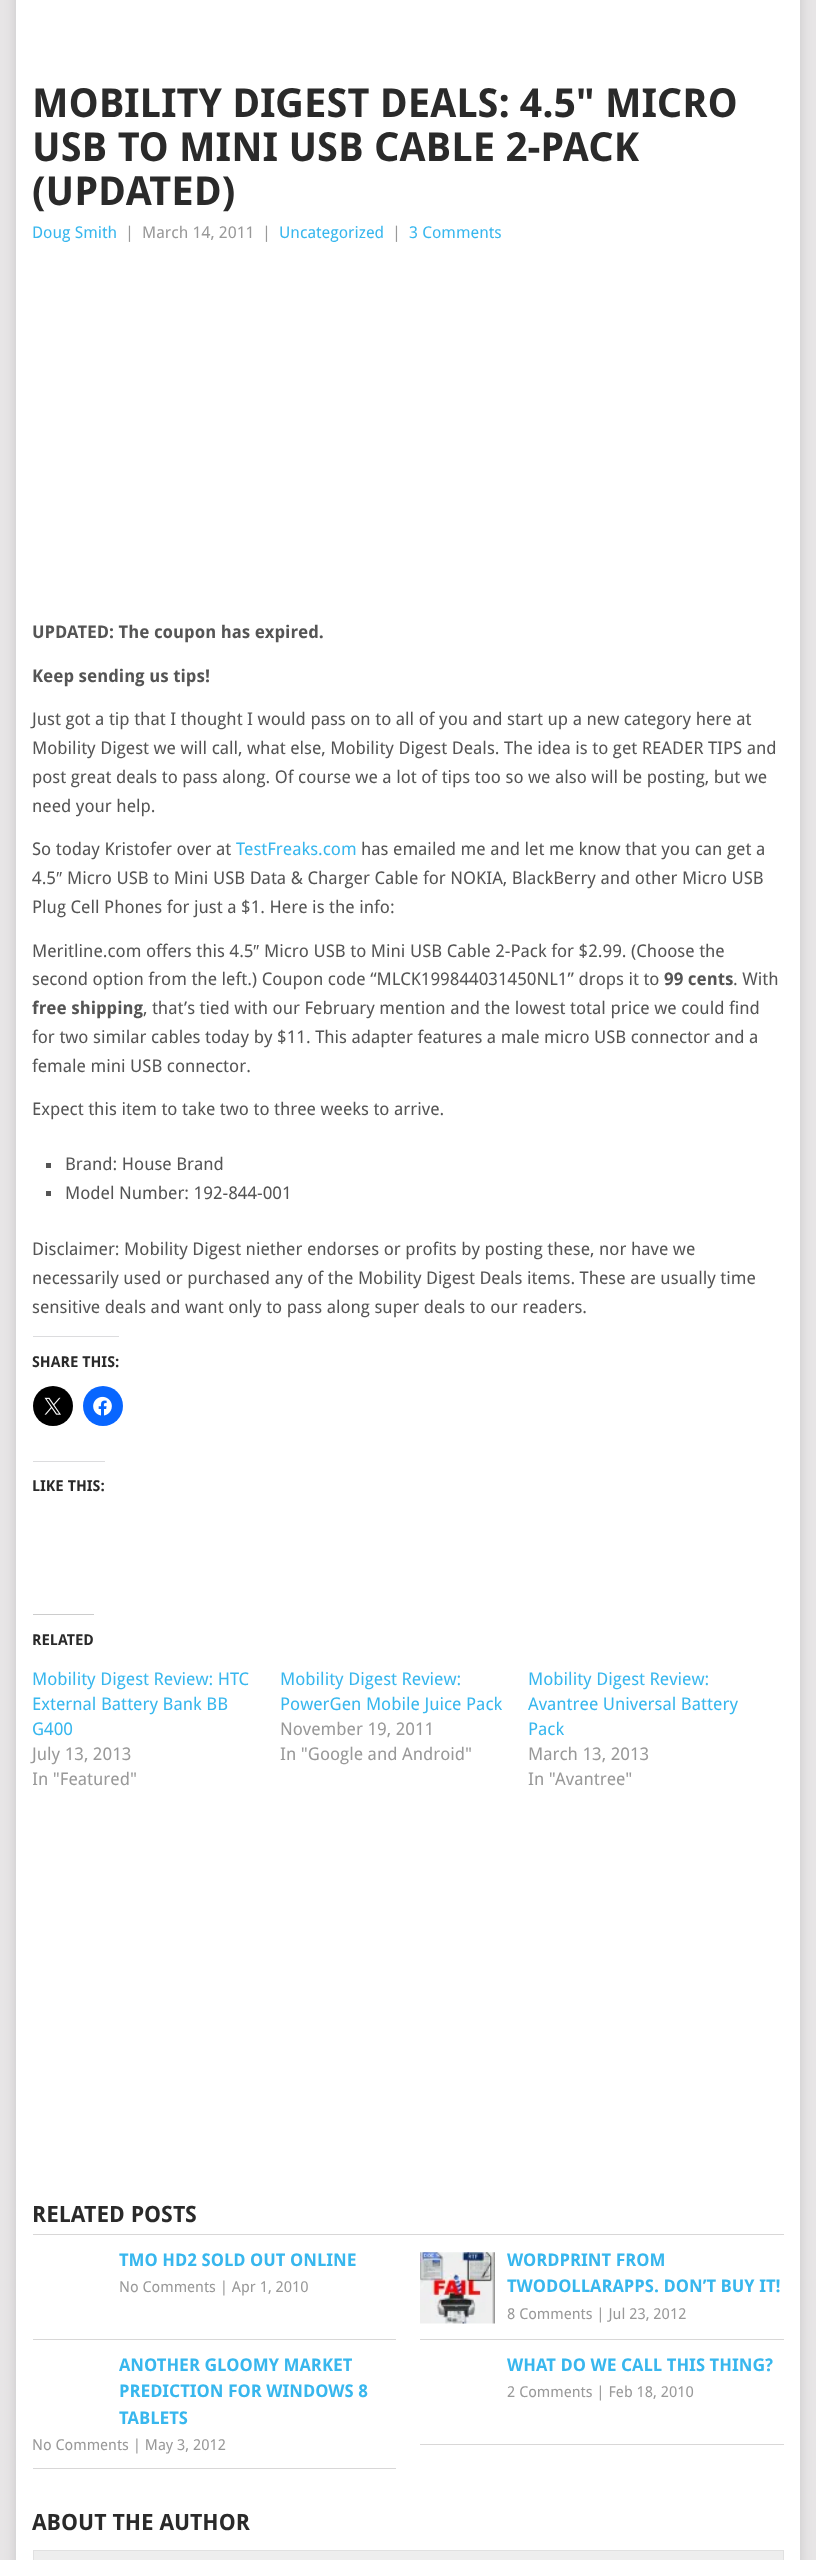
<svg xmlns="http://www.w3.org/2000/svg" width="816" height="2560">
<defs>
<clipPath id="clip1"><rect x="33" y="1766" width="222" height="25"/></clipPath>
</defs>
<rect width="100%" height="100%" fill="#e7e5e6"/>
<rect x="16" y="-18" width="784" height="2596" fill="#3232322b" filter="blur(6px)"/>
<rect x="16" width="784" height="2560" fill="#fff"/>
<text x="32" y="117" style="font-family:Droid Sans;font-size:40px;font-weight:bold;fill:#2a2a2a">MOBILITY DIGEST DEALS: 4.5" MICRO</text>
<text x="32" y="161" style="font-family:Droid Sans;font-size:40px;font-weight:bold;fill:#2a2a2a">USB TO MINI USB CABLE 2-PACK</text>
<text x="32" y="205" style="font-family:Droid Sans;font-size:40px;font-weight:bold;fill:#2a2a2a">(UPDATED)</text>
<text x="32" y="238" style="font-family:Droid Sans;font-size:16.25px;fill:#38b7ee">Doug Smith</text>
<text x="125" y="238" style="font-family:Droid Sans;font-size:16.25px;fill:#999">|</text>
<text x="142" y="238" style="font-family:Droid Sans;font-size:16.25px;fill:#999">March 14, 2011</text>
<text x="262" y="238" style="font-family:Droid Sans;font-size:16.25px;fill:#999">|</text>
<text x="279" y="238" style="font-family:Droid Sans;font-size:16.25px;fill:#38b7ee">Uncategorized</text>
<text x="392" y="238" style="font-family:Droid Sans;font-size:16.25px;fill:#999">|</text>
<text x="409" y="238" style="font-family:Droid Sans;font-size:16.25px;fill:#38b7ee">3 Comments</text>
<text x="32" y="638" style="font-family:Droid Sans;font-size:17.5px;font-weight:bold;fill:#555">UPDATED: The coupon has expired.</text>
<text x="32" y="682" style="font-family:Droid Sans;font-size:17.5px;font-weight:bold;fill:#555">Keep sending us tips!</text>
<text x="32" y="725" style="font-family:Droid Sans;font-size:17.5px;fill:#555">Just got a tip that I thought I would pass on to all of you and start up a new category here at</text>
<text x="32" y="754" style="font-family:Droid Sans;font-size:17.5px;fill:#555">Mobility Digest we will call, what else, Mobility Digest Deals. The idea is to get READER TIPS and</text>
<text x="32" y="783" style="font-family:Droid Sans;font-size:17.5px;fill:#555">post great deals to pass along. Of course we a lot of tips too so we also will be posting, but we</text>
<text x="32" y="812" style="font-family:Droid Sans;font-size:17.5px;fill:#555">need your help.</text>
<text x="32" y="855" style="font-family:Droid Sans;font-size:17.5px;fill:#555">So today Kristofer over at</text>
<text x="236" y="855" style="font-family:Droid Sans;font-size:17.5px;fill:#38b7ee">TestFreaks.com</text>
<text x="361" y="855" style="font-family:Droid Sans;font-size:17.5px;fill:#555">has emailed me and let me know that you can get a</text>
<text x="32" y="884" style="font-family:Droid Sans;font-size:17.5px;fill:#555">4.5</text>
<text x="56" y="884" style="font-family:Liberation Sans;font-size:17.5px;fill:#555">″</text>
<text x="67" y="884" style="font-family:Droid Sans;font-size:17.5px;fill:#555">Micro USB to Mini USB Data &amp; Charger Cable for NOKIA, BlackBerry and other Micro USB</text>
<text x="32" y="913" style="font-family:Droid Sans;font-size:17.5px;fill:#555">Plug Cell Phones for just a $1. Here is the info:</text>
<text x="32" y="957" style="font-family:Droid Sans;font-size:17.5px;fill:#555">Meritline.com offers this 4.5</text>
<text x="253" y="957" style="font-family:Liberation Sans;font-size:17.5px;fill:#555">″</text>
<text x="264" y="957" style="font-family:Droid Sans;font-size:17.5px;fill:#555">Micro USB to Mini USB Cable 2-Pack for $2.99. (Choose the</text>
<text x="32" y="985" style="font-family:Droid Sans;font-size:17.5px;fill:#555">second option from the left.) Coupon code “MLCK199844031450NL1” drops it to</text>
<text x="664" y="985" style="font-family:Droid Sans;font-size:17.5px;font-weight:bold;fill:#555">99 cents</text>
<text x="733" y="985" style="font-family:Droid Sans;font-size:17.5px;fill:#555">. With</text>
<text x="32" y="1014" style="font-family:Droid Sans;font-size:17.5px;font-weight:bold;fill:#555">free shipping</text>
<text x="143" y="1014" style="font-family:Droid Sans;font-size:17.5px;fill:#555">, that’s tied with our February mention and the lowest total price we could find</text>
<text x="32" y="1043" style="font-family:Droid Sans;font-size:17.5px;fill:#555">for two similar cables today by $11. This adapter features a male micro USB connector and a</text>
<text x="32" y="1072" style="font-family:Droid Sans;font-size:17.5px;fill:#555">female mini USB connector.</text>
<text x="32" y="1115" style="font-family:Droid Sans;font-size:17.5px;fill:#555">Expect this item to take two to three weeks to arrive.</text>
<rect x="46" y="1163" width="5" height="5" fill="#555"/>
<text x="65" y="1170" style="font-family:Droid Sans;font-size:17.5px;fill:#555">Brand: House Brand</text>
<rect x="46" y="1191" width="5" height="5" fill="#555"/>
<text x="65" y="1199" style="font-family:Droid Sans;font-size:17.5px;fill:#555">Model Number: 192-844-001</text>
<text x="32" y="1255" style="font-family:Droid Sans;font-size:17.5px;fill:#555">Disclaimer: Mobility Digest niether endorses or profits by posting these, nor have we</text>
<text x="32" y="1284" style="font-family:Droid Sans;font-size:17.5px;fill:#555">necessarily used or purchased any of the Mobility Digest Deals items. These are usually time</text>
<text x="32" y="1313" style="font-family:Droid Sans;font-size:17.5px;fill:#555">sensitive deals and want only to pass along super deals to our readers.</text>
<rect x="33" y="1336" width="86" height="1" fill="#dcdcde"/>
<text x="32" y="1367" style="font-family:Droid Sans;font-size:15px;font-weight:bold;fill:#2a2a2a">SHARE THIS:</text>
<circle cx="53" cy="1406" r="20" fill="#000"/>
<image x="44" y="1397" width="17" height="18" href="media/1.png"/>
<circle cx="103" cy="1406" r="20" fill="#0866ff"/>
<image x="93" y="1396" width="19" height="20" href="media/2.png"/>
<rect x="33" y="1461" width="72" height="1" fill="#dcdcde"/>
<text x="32" y="1491" style="font-family:Droid Sans;font-size:15px;font-weight:bold;fill:#2a2a2a">LIKE THIS:</text>
<rect x="33" y="1614" width="61" height="1" fill="#ccc"/>
<text x="32" y="1645" style="font-family:Droid Sans;font-size:15px;font-weight:bold;fill:#2a2a2a">RELATED</text>
<text x="32" y="1685" style="font-family:Droid Sans;font-size:17.5px;fill:#38b7ee">Mobility Digest Review: HTC</text>
<text x="32" y="1710" style="font-family:Droid Sans;font-size:17.5px;fill:#38b7ee">External Battery Bank BB</text>
<text x="32" y="1735" style="font-family:Droid Sans;font-size:17.5px;fill:#38b7ee">G400</text>
<text x="32" y="1760" style="font-family:Droid Sans;font-size:17.5px;fill:#999">July 13, 2013</text>
<g clip-path="url(#clip1)">
<text x="32" y="1785" style="font-family:Droid Sans;font-size:17.5px;fill:#999">In "Featured"</text>
</g>
<text x="280" y="1685" style="font-family:Droid Sans;font-size:17.5px;fill:#38b7ee">Mobility Digest Review:</text>
<text x="280" y="1710" style="font-family:Droid Sans;font-size:17.5px;fill:#38b7ee">PowerGen Mobile Juice Pack</text>
<text x="280" y="1735" style="font-family:Droid Sans;font-size:17.5px;fill:#999">November 19, 2011</text>
<text x="280" y="1760" style="font-family:Droid Sans;font-size:17.5px;fill:#999">In "Google and Android"</text>
<text x="528" y="1685" style="font-family:Droid Sans;font-size:17.5px;fill:#38b7ee">Mobility Digest Review:</text>
<text x="528" y="1710" style="font-family:Droid Sans;font-size:17.5px;fill:#38b7ee">Avantree Universal Battery</text>
<text x="528" y="1735" style="font-family:Droid Sans;font-size:17.5px;fill:#38b7ee">Pack</text>
<text x="528" y="1760" style="font-family:Droid Sans;font-size:17.5px;fill:#999">March 13, 2013</text>
<text x="528" y="1785" style="font-family:Droid Sans;font-size:17.5px;fill:#999">In "Avantree"</text>
<rect x="33" y="2234" width="751" height="1" fill="#d8d7d7"/>
<text x="32" y="2222" style="font-family:Droid Sans;font-size:22.5px;font-weight:bold;fill:#2a2a2a">RELATED POSTS</text>
<rect x="33" y="2339" width="363" height="1" fill="#d8d7d7"/>
<text x="119" y="2266" style="font-family:Droid Sans;font-size:17.5px;font-weight:bold;fill:#38b7ee">TMO HD2 SOLD OUT ONLINE</text>
<text x="119" y="2292" style="font-family:Droid Sans;font-size:15px;fill:#999">No Comments | Apr 1, 2010</text>
<rect x="420" y="2339" width="364" height="1" fill="#d8d7d7"/>
<image x="420" y="2252" width="75" height="72" href="media/3.png"/>
<text x="507" y="2266" style="font-family:Droid Sans;font-size:17.5px;font-weight:bold;fill:#38b7ee">WORDPRINT FROM</text>
<text x="507" y="2292" style="font-family:Droid Sans;font-size:17.5px;font-weight:bold;fill:#38b7ee">TWODOLLARAPPS. DON’T BUY IT!</text>
<text x="507" y="2319" style="font-family:Droid Sans;font-size:15px;fill:#999">8 Comments | Jul 23, 2012</text>
<rect x="33" y="2468" width="363" height="1" fill="#d8d7d7"/>
<text x="119" y="2371" style="font-family:Droid Sans;font-size:17.5px;font-weight:bold;fill:#38b7ee">ANOTHER GLOOMY MARKET</text>
<text x="119" y="2397" style="font-family:Droid Sans;font-size:17.5px;font-weight:bold;fill:#38b7ee">PREDICTION FOR WINDOWS 8</text>
<text x="119" y="2424" style="font-family:Droid Sans;font-size:17.5px;font-weight:bold;fill:#38b7ee">TABLETS</text>
<text x="32" y="2450" style="font-family:Droid Sans;font-size:15px;fill:#999">No Comments | May 3, 2012</text>
<rect x="420" y="2444" width="364" height="1" fill="#d8d7d7"/>
<text x="507" y="2371" style="font-family:Droid Sans;font-size:17.5px;font-weight:bold;fill:#38b7ee">WHAT DO WE CALL THIS THING?</text>
<text x="507" y="2397" style="font-family:Droid Sans;font-size:15px;fill:#999">2 Comments | Feb 18, 2010</text>
<text x="32" y="2530" style="font-family:Droid Sans;font-size:22.5px;font-weight:bold;fill:#2a2a2a">ABOUT THE AUTHOR</text>
<rect x="33.5" y="2550.5" width="750" height="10" fill="#eee" stroke="#e1e1e1"/>
</svg>
